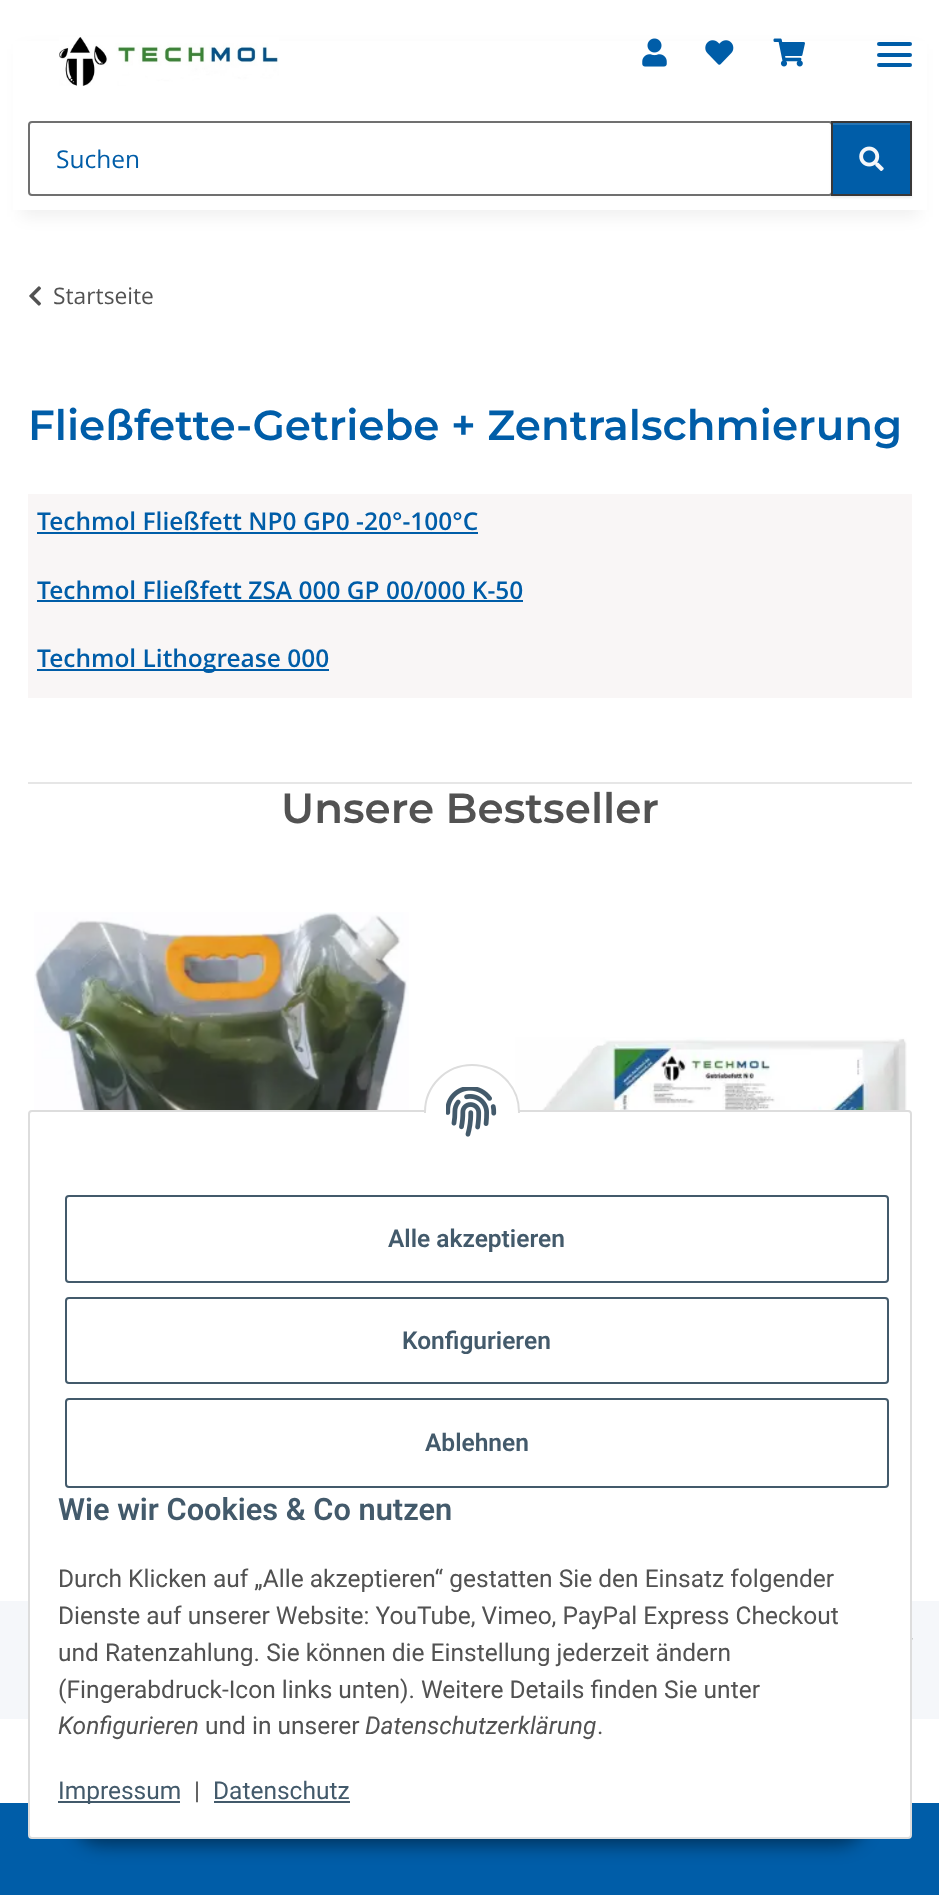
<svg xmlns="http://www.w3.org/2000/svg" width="939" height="1895">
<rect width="100%" height="100%" fill="#fff"/>
<rect x="21" y="49" width="898" height="168" fill="#0000000f" filter="blur(8px)"/>
<rect x="13" y="41" width="914" height="169" fill="#fff"/>
<image x="59" y="37" width="220" height="49" href="media/1.png"/>
<rect x="877" y="53" width="35" height="4" rx="2" fill="#005da8"/>
<rect x="877" y="42" width="35" height="4" rx="2" fill="#005da8"/>
<rect x="877" y="63" width="35" height="4" rx="2" fill="#005da8"/>
<image x="642" y="38" width="25" height="29" href="media/2.png"/>
<image x="705" y="40" width="29" height="25" href="media/3.png"/>
<image x="773" y="38" width="32" height="29" href="media/4.png"/>
<rect x="29" y="122" width="803" height="73" rx="3" fill="none" stroke="#707070" stroke-width="2"/>
<text x="56" y="168" style="font-family:Open Sans;font-size:24.5px;fill:#005da8">Suchen</text>
<rect x="831" y="123" width="81" height="75" fill="#00000012" filter="blur(1px)"/>
<rect x="833" y="125" width="77" height="69" fill="#005da8"/>
<rect x="833" y="123" width="77" height="2" fill="#2675b5"/>
<rect x="832" y="122" width="79" height="73" fill="none" stroke="#393838" stroke-width="2"/>
<image x="859" y="146" width="25" height="25" href="media/5.png"/>
<image x="29" y="286" width="12" height="20" href="media/6.png"/>
<text x="53" y="304" style="font-family:Open Sans;font-size:22.75px;fill:#525252">Startseite</text>
<text x="28" y="440" style="font-family:Montserrat;font-size:42px;font-weight:600;fill:#005da8">Fließfette-Getriebe + Zentralschmierung</text>
<rect x="28" y="494" width="884" height="204" fill="#f9f6f6"/>
<text x="37" y="530" style="font-family:Open Sans;font-size:24.5px;font-weight:600;fill:#005da8">Techmol Fließfett NP0 GP0 -20°-100°C</text>
<rect x="37" y="532" width="441" height="2" fill="#005da8"/>
<text x="37" y="599" style="font-family:Open Sans;font-size:24.5px;font-weight:600;fill:#005da8">Techmol Fließfett ZSA 000 GP 00/000 K-50</text>
<rect x="37" y="600" width="486" height="2" fill="#005da8"/>
<rect x="37" y="669" width="292" height="2" fill="#005da8"/>
<text x="37" y="667" style="font-family:Open Sans;font-size:24.5px;font-weight:600;fill:#005da8">Techmol Lithogrease 000</text>
<rect x="28" y="782" width="884" height="2" fill="#e6e6e6"/>
<text x="281" y="823" style="font-family:Montserrat;font-size:42px;font-weight:600;fill:#525252">Unsere Bestseller</text>
<image x="34" y="912" width="375" height="198" href="media/7.png"/>
<image x="515" y="1037" width="392" height="73" href="media/8.png"/>
<rect y="1601" width="939" height="118" fill="#f5f7fa"/>
<image x="912" y="1638" width="1" height="2" href="media/9.png"/>
<rect y="1803" width="939" height="92" fill="#005da8"/>
<rect x="74" y="1789" width="792" height="56" rx="28" fill="#00000073" filter="blur(9px)"/>
<rect x="29" y="1111" width="882" height="727" rx="3" fill="#fff" stroke="#ddd" stroke-width="2"/>
<circle cx="472" cy="1112" r="47" fill="#fff" stroke="#ddd" stroke-width="2"/>
<rect x="424" y="1113" width="96" height="47" fill="#fff"/>
<image x="446" y="1087" width="51" height="50" href="media/10.png"/>
<rect x="66" y="1196" width="822" height="86" rx="3" fill="none" stroke="#435a6b" stroke-width="2"/>
<text x="388" y="1247" style="font-family:Roboto;font-size:24.5px;font-weight:600;fill:#435a6b">Alle akzeptieren</text>
<rect x="66" y="1298" width="822" height="85" rx="3" fill="none" stroke="#435a6b" stroke-width="2"/>
<text x="402" y="1349" style="font-family:Roboto;font-size:24.5px;font-weight:600;fill:#435a6b">Konfigurieren</text>
<rect x="66" y="1399" width="822" height="88" rx="3" fill="none" stroke="#435a6b" stroke-width="2"/>
<text x="425" y="1451" style="font-family:Roboto;font-size:24.5px;font-weight:600;fill:#435a6b">Ablehnen</text>
<text x="58" y="1520" style="font-family:Roboto;font-size:30.75px;font-weight:600;fill:#435a6b">Wie wir Cookies &amp; Co nutzen</text>
<text x="58" y="1587" style="font-family:Roboto;font-size:24.5px;fill:#525252">Durch Klicken auf „Alle akzeptieren“ gestatten Sie den Einsatz folgender</text>
<text x="58" y="1624" style="font-family:Roboto;font-size:24.5px;fill:#525252">Dienste auf unserer Website: YouTube, Vimeo, PayPal Express Checkout</text>
<text x="58" y="1661" style="font-family:Roboto;font-size:24.5px;fill:#525252">und Ratenzahlung. Sie können die Einstellung jederzeit ändern</text>
<text x="58" y="1698" style="font-family:Roboto;font-size:24.5px;fill:#525252">(Fingerabdruck-Icon links unten). Weitere Details finden Sie unter</text>
<text x="58" y="1734" style="font-family:Roboto;font-size:24.5px;font-style:italic;fill:#525252">Konfigurieren</text>
<text x="205" y="1734" style="font-family:Roboto;font-size:24.5px;fill:#525252">und in unserer</text>
<text x="365" y="1734" style="font-family:Roboto;font-size:24.5px;font-style:italic;fill:#525252">Datenschutzerklärung</text>
<text x="597" y="1734" style="font-family:Roboto;font-size:24.5px;fill:#525252">.</text>
<rect x="58" y="1801" width="122" height="2" fill="#435a6b"/>
<text x="58" y="1799" style="font-family:Roboto;font-size:24.5px;fill:#435a6b">Impressum</text>
<text x="194" y="1799" style="font-family:Roboto;font-size:24.5px;fill:#525252">|</text>
<text x="213" y="1799" style="font-family:Roboto;font-size:24.5px;fill:#435a6b">Datenschutz</text>
<rect x="214" y="1801" width="136" height="2" fill="#435a6b"/>
</svg>
